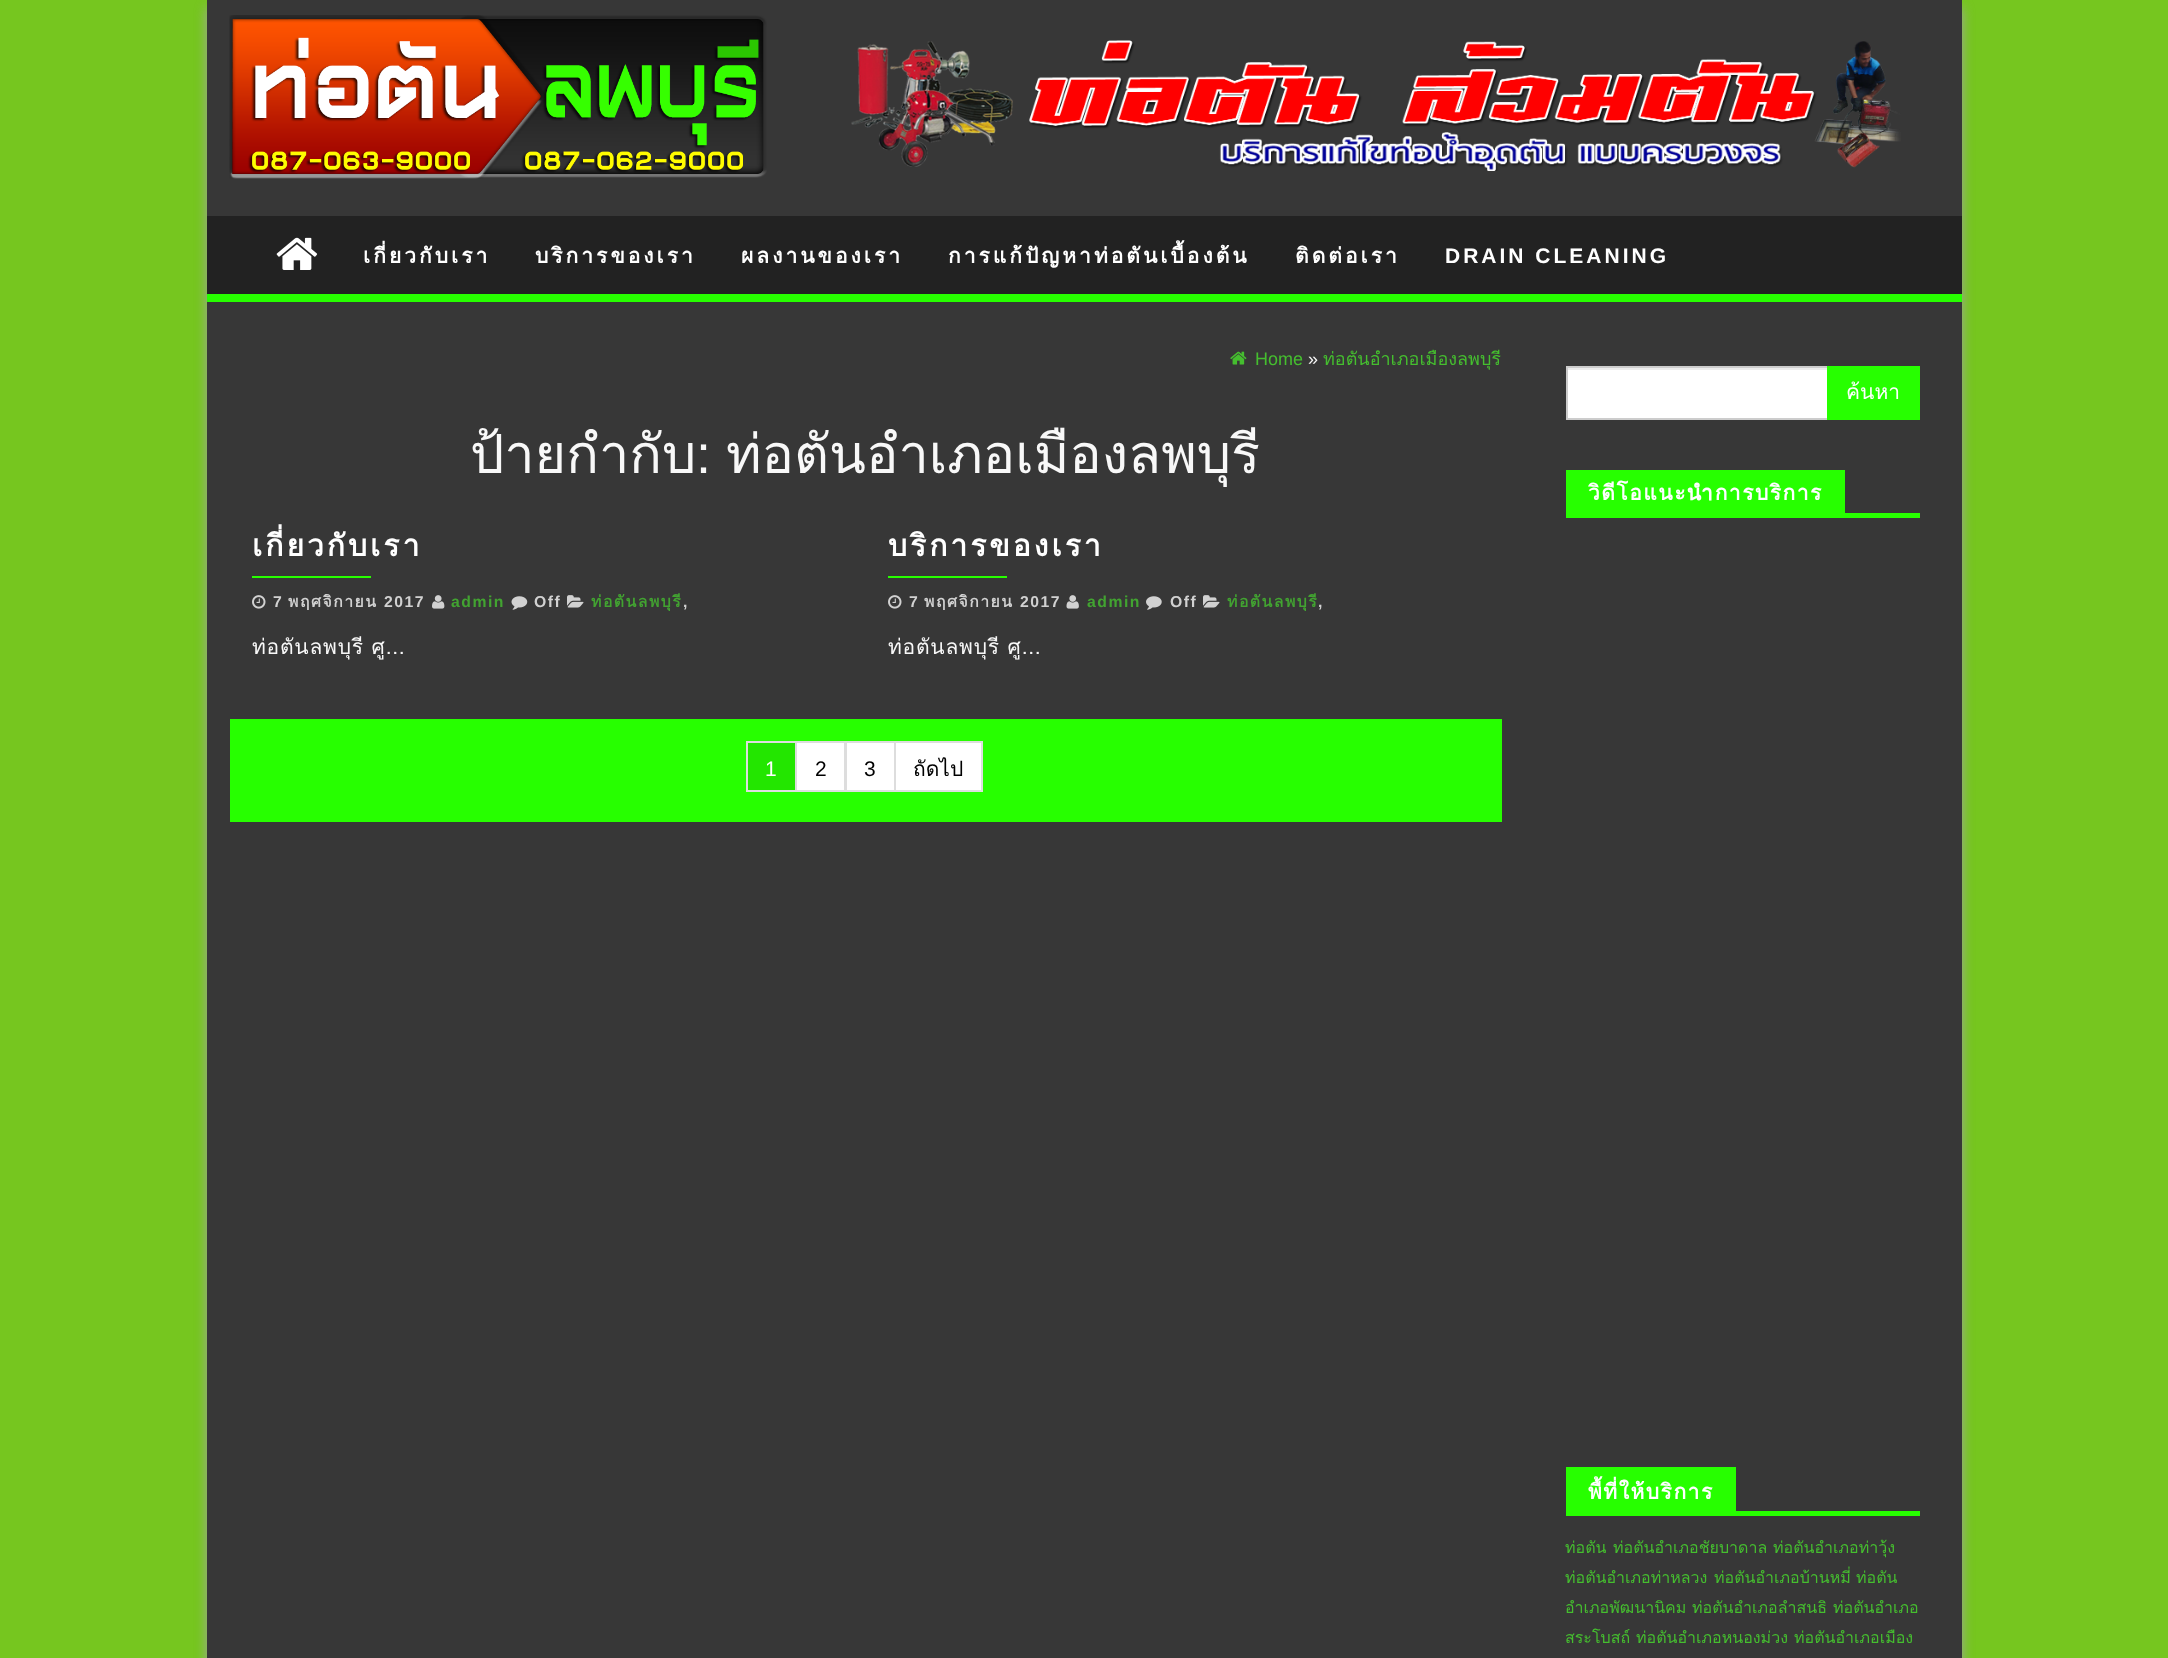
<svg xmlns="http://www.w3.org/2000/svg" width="2168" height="1658">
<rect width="100%" height="100%" fill="#76c61f"/>
<rect x="207" y="8" width="1755" height="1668" fill="#a1a1a1" filter="blur(6px)"/>
<rect x="207" width="1755" height="1658" fill="#373737"/>
<image x="229" y="15" width="538" height="164" href="media/1.png"/>
<image x="851" y="40" width="1050" height="131" href="media/2.png"/>
<rect x="207" y="294" width="1755" height="8" fill="#27ff00"/>
<rect x="207" y="216" width="1755" height="78" fill="#222"/>
<image x="276" y="237" width="42" height="33" href="media/3.png"/>
<text x="363" y="263" style="font-family:Loma;font-size:21px;font-weight:bold;letter-spacing:3px;fill:#fff">เกี่ยวกับเรา</text>
<text x="535" y="263" style="font-family:Loma;font-size:21px;font-weight:bold;letter-spacing:3px;fill:#fff">บริการของเรา</text>
<text x="741" y="263" style="font-family:Loma;font-size:21px;font-weight:bold;letter-spacing:3px;fill:#fff">ผลงานของเรา</text>
<text x="948" y="263" style="font-family:Loma;font-size:21px;font-weight:bold;letter-spacing:3px;fill:#fff">การแก้ปัญหาท่อตันเบื้องต้น</text>
<text x="1295" y="263" style="font-family:Loma;font-size:21px;font-weight:bold;letter-spacing:3px;fill:#fff">ติดต่อเรา</text>
<text x="1445" y="263" style="font-family:Liberation Sans;font-size:21px;font-weight:bold;letter-spacing:3px;fill:#fff">DRAIN CLEANING</text>
<image x="1230" y="351" width="17" height="14" href="media/4.png"/>
<text x="1255" y="365" style="font-family:Liberation Sans;font-size:18px;fill:#45be2f">Home</text>
<text x="1308" y="365" style="font-family:Liberation Sans;font-size:18px;fill:#f8f8f8">»</text>
<text x="1323" y="365" style="font-family:Loma;font-size:18px;fill:#45be2f">ท่อตันอำเภอเมืองลพบุรี</text>
<text x="470" y="473" style="font-family:Loma;font-size:54px;fill:#f8f8f8">ป้ายกำกับ</text>
<text x="696" y="473" style="font-family:Liberation Sans;font-size:54px;fill:#f8f8f8">:</text>
<text x="726" y="473" style="font-family:Loma;font-size:54px;fill:#f8f8f8">ท่อตันอำเภอเมืองลพบุรี</text>
<text x="252" y="556" style="font-family:Loma;font-size:30px;font-weight:bold;letter-spacing:3px;fill:#fff">เกี่ยวกับเรา</text>
<rect x="252" y="576" width="119" height="2" fill="#27ff00"/>
<image x="252" y="595" width="14" height="14" href="media/5.png"/>
<text x="273" y="607" style="font-family:Liberation Sans;font-size:15.75px;font-weight:bold;letter-spacing:1.5px;fill:#d1d1d1">7</text>
<text x="288" y="607" style="font-family:Loma;font-size:15.75px;font-weight:bold;letter-spacing:1.5px;fill:#d1d1d1">พฤศจิกายน</text>
<text x="384" y="607" style="font-family:Liberation Sans;font-size:15.75px;font-weight:bold;letter-spacing:1.5px;fill:#d1d1d1">2017</text>
<image x="432" y="595" width="13" height="14" href="media/6.png"/>
<text x="451" y="607" style="font-family:Liberation Sans;font-size:15.75px;font-weight:bold;letter-spacing:1.5px;fill:#42a331">admin</text>
<image x="511" y="596" width="17" height="14" href="media/7.png"/>
<text x="534" y="607" style="font-family:Liberation Sans;font-size:15.75px;font-weight:bold;letter-spacing:1.5px;fill:#d1d1d1">Off</text>
<image x="567" y="595" width="17" height="13" href="media/8.png"/>
<text x="591" y="607" style="font-family:Loma;font-size:15.75px;font-weight:bold;letter-spacing:1.5px;fill:#42a331">ท่อตันลพบุรี</text>
<text x="683" y="607" style="font-family:Liberation Sans;font-size:15.75px;font-weight:bold;letter-spacing:1.5px;fill:#d1d1d1">,</text>
<text x="252" y="654" style="font-family:Loma;font-size:21px;letter-spacing:0.75px;fill:#f8f8f8">ท่อตันลพบุรี ศู...</text>
<text x="888" y="556" style="font-family:Loma;font-size:30px;font-weight:bold;letter-spacing:3px;fill:#fff">บริการของเรา</text>
<rect x="888" y="576" width="119" height="2" fill="#27ff00"/>
<image x="888" y="595" width="14" height="14" href="media/5.png"/>
<text x="909" y="607" style="font-family:Liberation Sans;font-size:15.75px;font-weight:bold;letter-spacing:1.5px;fill:#d1d1d1">7</text>
<text x="924" y="607" style="font-family:Loma;font-size:15.75px;font-weight:bold;letter-spacing:1.5px;fill:#d1d1d1">พฤศจิกายน</text>
<text x="1020" y="607" style="font-family:Liberation Sans;font-size:15.75px;font-weight:bold;letter-spacing:1.5px;fill:#d1d1d1">2017</text>
<image x="1066" y="595" width="13" height="14" href="media/9.png"/>
<text x="1087" y="607" style="font-family:Liberation Sans;font-size:15.75px;font-weight:bold;letter-spacing:1.5px;fill:#42a331">admin</text>
<image x="1146" y="596" width="16" height="14" href="media/10.png"/>
<text x="1170" y="607" style="font-family:Liberation Sans;font-size:15.75px;font-weight:bold;letter-spacing:1.5px;fill:#d1d1d1">Off</text>
<image x="1203" y="595" width="17" height="13" href="media/8.png"/>
<text x="1227" y="607" style="font-family:Loma;font-size:15.75px;font-weight:bold;letter-spacing:1.5px;fill:#42a331">ท่อตันลพบุรี</text>
<text x="1318" y="607" style="font-family:Liberation Sans;font-size:15.75px;font-weight:bold;letter-spacing:1.5px;fill:#d1d1d1">,</text>
<text x="888" y="654" style="font-family:Loma;font-size:21px;letter-spacing:0.75px;fill:#f8f8f8">ท่อตันลพบุรี ศู...</text>
<rect x="230" y="719" width="1272" height="103" fill="#27ff00"/>
<rect x="747" y="742" width="49" height="49" fill="#23e600" stroke="#ddd" stroke-width="2"/>
<text x="765" y="776" style="font-family:Liberation Sans;font-size:21px;fill:#fff">1</text>
<rect x="796" y="742" width="49" height="49" fill="#fff" stroke="#ddd" stroke-width="2"/>
<text x="815" y="776" style="font-family:Liberation Sans;font-size:21px;fill:#000">2</text>
<rect x="846" y="742" width="49" height="49" fill="#fff" stroke="#ddd" stroke-width="2"/>
<text x="864" y="776" style="font-family:Liberation Sans;font-size:21px;fill:#000">3</text>
<rect x="895" y="742" width="87" height="49" fill="#fff" stroke="#ddd" stroke-width="2"/>
<text x="913" y="776" style="font-family:Loma;font-size:21px;fill:#000">ถัดไป</text>
<rect x="1568" y="370" width="259" height="48" fill="#fff"/>
<rect x="1568" y="368" width="259" height="2" fill="#ececec"/>
<rect x="1567" y="367" width="352" height="52" fill="none" stroke="#ccc" stroke-width="2"/>
<rect x="1827" y="366" width="93" height="54" fill="#27ff00"/>
<text x="1846" y="399" style="font-family:Loma;font-size:21px;fill:#fff">ค้นหา</text>
<rect x="1566" y="513" width="354" height="5" fill="#27ff00"/>
<rect x="1566" y="470" width="279" height="43" fill="#27ff00"/>
<text x="1588" y="500" style="font-family:Loma;font-size:21px;font-weight:bold;letter-spacing:1.5px;fill:#fff">วิดีโอแนะนำการบริการ</text>
<rect x="1566" y="1511" width="354" height="5" fill="#27ff00"/>
<rect x="1566" y="1467" width="170" height="44" fill="#27ff00"/>
<text x="1588" y="1499" style="font-family:Loma;font-size:21px;font-weight:bold;letter-spacing:1.5px;fill:#fff">พื้ที่ให้บริการ</text>
<text x="1565" y="1553" style="font-family:Loma;font-size:16px;fill:#45be2f">ท่อตัน</text>
<text x="1613" y="1553" style="font-family:Loma;font-size:16px;fill:#45be2f">ท่อตันอำเภอชัยบาดาล</text>
<text x="1773" y="1553" style="font-family:Loma;font-size:16px;fill:#45be2f">ท่อตันอำเภอท่าวุ้ง</text>
<text x="1565" y="1583" style="font-family:Loma;font-size:16px;fill:#45be2f">ท่อตันอำเภอท่าหลวง</text>
<text x="1714" y="1583" style="font-family:Loma;font-size:16px;fill:#45be2f">ท่อตันอำเภอบ้านหมี่</text>
<text x="1856" y="1583" style="font-family:Loma;font-size:16px;fill:#45be2f">ท่อตัน</text>
<text x="1565" y="1613" style="font-family:Loma;font-size:16px;fill:#45be2f">อำเภอพัฒนานิคม</text>
<text x="1692" y="1613" style="font-family:Loma;font-size:16px;fill:#45be2f">ท่อตันอำเภอลำสนธิ</text>
<text x="1833" y="1613" style="font-family:Loma;font-size:16px;fill:#45be2f">ท่อตันอำเภอ</text>
<text x="1565" y="1643" style="font-family:Loma;font-size:16px;fill:#45be2f">สระโบสถ์</text>
<text x="1636" y="1643" style="font-family:Loma;font-size:16px;fill:#45be2f">ท่อตันอำเภอหนองม่วง</text>
<text x="1794" y="1643" style="font-family:Loma;font-size:16px;fill:#45be2f">ท่อตันอำเภอเมือง</text>
</svg>
